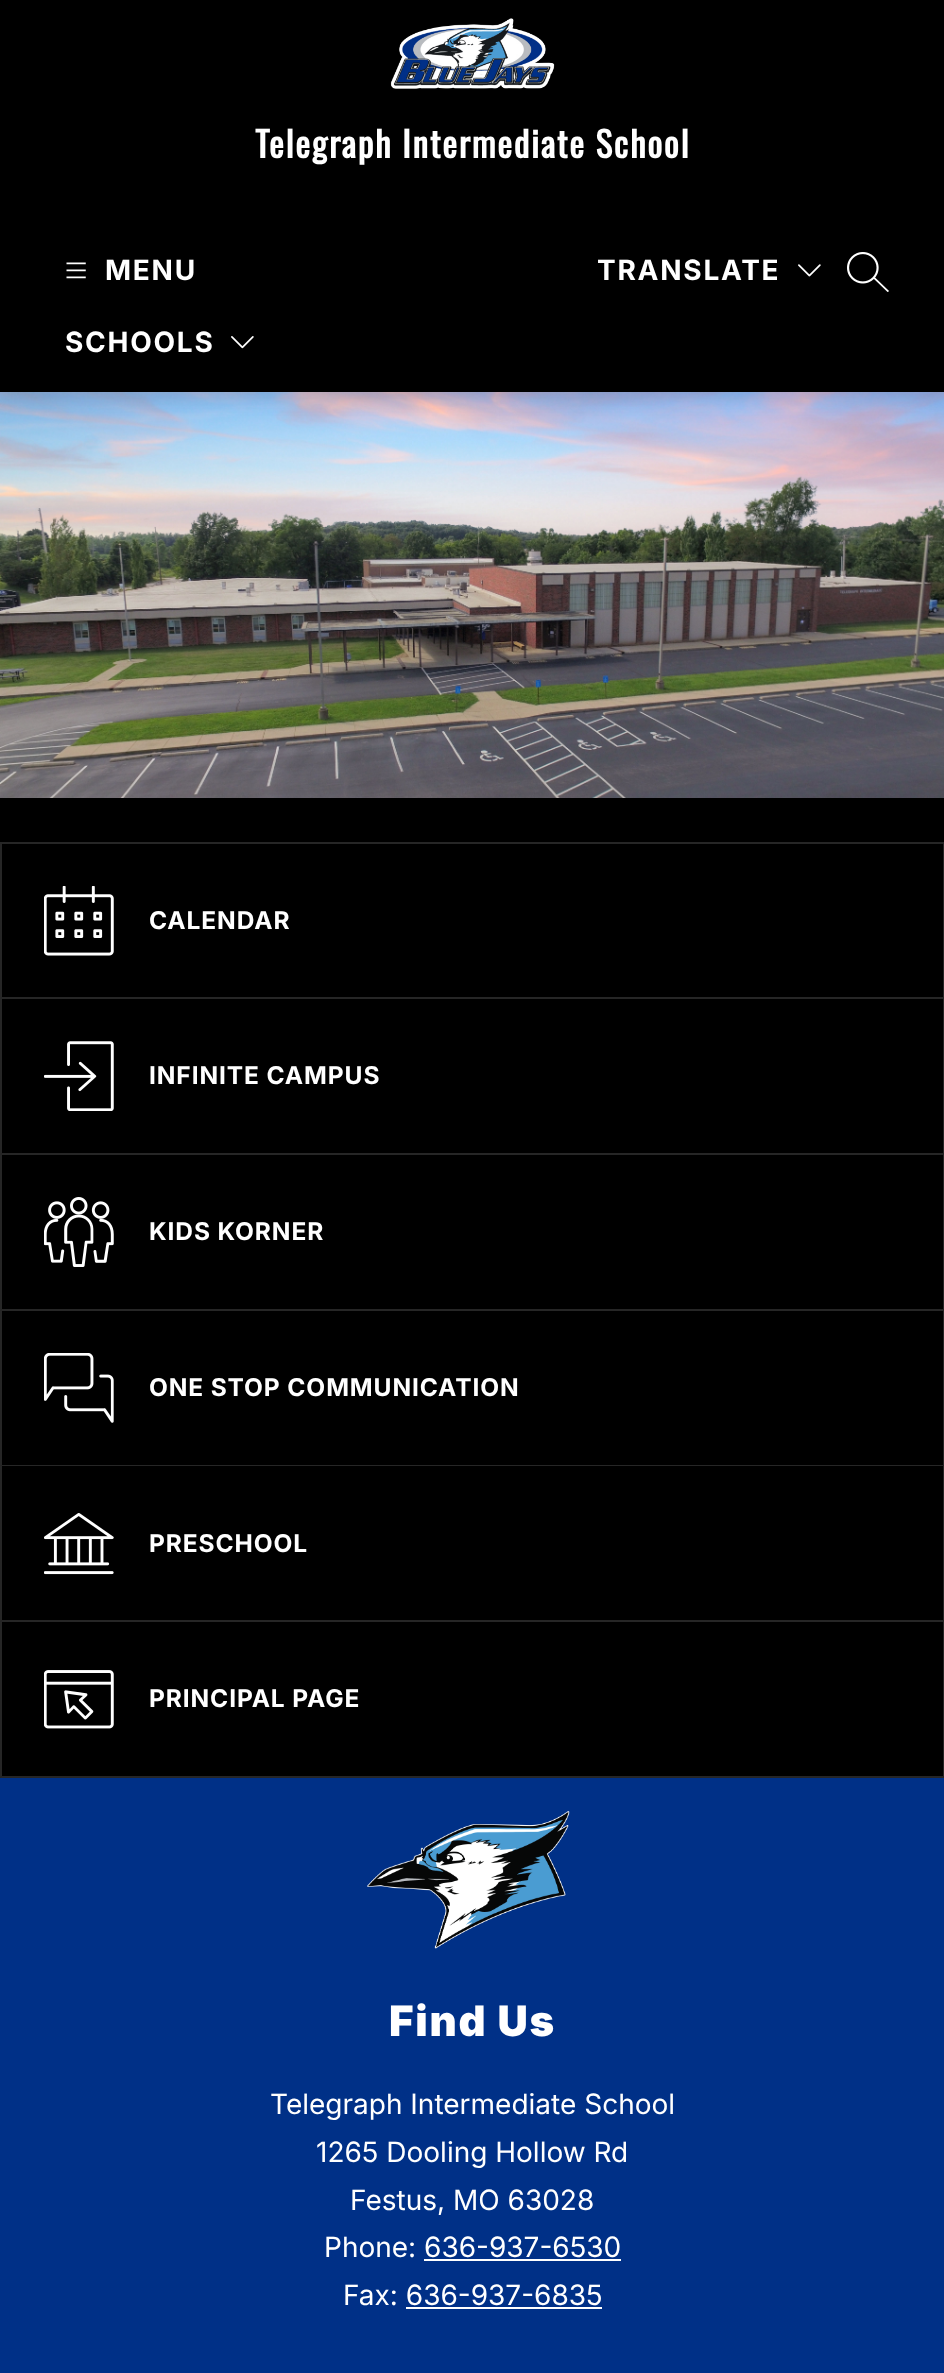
<svg xmlns="http://www.w3.org/2000/svg" width="944" height="2373">
<rect width="100%" height="100%" fill="#003087"/>
<image x="0" y="392" width="944" height="406" href="media/6.png"/>
<rect y="7" width="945" height="392" fill="#0000001a" filter="blur(9px)"/>
<rect width="944" height="392" fill="#000"/>
<image x="390" y="18" width="165" height="71" href="media/1.png"/>
<text x="255" y="158" style="font-family:Oswald;font-size:35px;font-weight:bold;letter-spacing:1.75px;fill:#fff">Telegraph Intermediate School</text>
<image x="66" y="262" width="20" height="17" href="media/2.png"/>
<text x="105" y="280" style="font-family:Inter;font-size:28px;font-weight:bold;letter-spacing:1.75px;fill:#fff">MENU</text>
<text x="65" y="352" style="font-family:Inter;font-size:28px;font-weight:bold;letter-spacing:1.75px;fill:#fff">SCHOOLS</text>
<image x="231" y="336" width="23" height="13" href="media/3.png"/>
<text x="597" y="280" style="font-family:Inter;font-size:28px;font-weight:bold;letter-spacing:1.75px;fill:#fff">TRANSLATE</text>
<image x="798" y="264" width="23" height="13" href="media/4.png"/>
<image x="847" y="252" width="42" height="40" href="media/5.png"/>
<rect y="798" width="944" height="44" fill="#000"/>
<rect x="1" y="843" width="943" height="155" fill="#000" stroke="#262626" stroke-width="2"/>
<image x="44" y="886" width="70" height="70" href="media/7.png"/>
<text x="149" y="929" style="font-family:Inter;font-size:24.5px;font-weight:bold;letter-spacing:0.9px;fill:#fff">CALENDAR</text>
<rect y="999" width="944" height="779" fill="#000"/>
<path d="M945 999v156l-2-2v-154z" fill="#262626"/>
<path d="M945 1155h-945l2-2h941z" fill="#ffffff26"/>
<path d="M0 1155v-156h2v154z" fill="#ffffff26"/>
<image x="44" y="1041" width="70" height="70" href="media/8.png"/>
<text x="149" y="1084" style="font-family:Inter;font-size:24.5px;font-weight:bold;letter-spacing:0.9px;fill:#fff">INFINITE CAMPUS</text>
<path d="M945 1155v156l-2-2v-154z" fill="#262626"/>
<path d="M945 1311h-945l2-2h941z" fill="#ffffff26"/>
<path d="M0 1311v-156h2v154z" fill="#ffffff26"/>
<image x="44" y="1197" width="70" height="70" href="media/9.png"/>
<text x="149" y="1240" style="font-family:Inter;font-size:24.5px;font-weight:bold;letter-spacing:0.9px;fill:#fff">KIDS KORNER</text>
<path d="M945 1311v155l-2-1v-154z" fill="#262626"/>
<path d="M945 1466h-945l2-1h941z" fill="#ffffff26"/>
<path d="M0 1466v-155h2v154z" fill="#ffffff26"/>
<image x="44" y="1353" width="70" height="70" href="media/10.png"/>
<text x="149" y="1396" style="font-family:Inter;font-size:24.5px;font-weight:bold;letter-spacing:0.9px;fill:#fff">ONE STOP COMMUNICATION</text>
<path d="M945 1466v156l-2-2v-154z" fill="#262626"/>
<path d="M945 1622h-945l2-2h941z" fill="#ffffff26"/>
<path d="M0 1622v-156h2v154z" fill="#ffffff26"/>
<image x="44" y="1513" width="70" height="62" href="media/11.png"/>
<text x="149" y="1552" style="font-family:Inter;font-size:24.5px;font-weight:bold;letter-spacing:0.9px;fill:#fff">PRESCHOOL</text>
<path d="M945 1622v156l-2-2v-154z" fill="#262626"/>
<path d="M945 1778h-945l2-2h941z" fill="#ffffff26"/>
<path d="M0 1778v-156h2v154z" fill="#ffffff26"/>
<image x="44" y="1670" width="70" height="59" href="media/12.png"/>
<text x="149" y="1707" style="font-family:Inter;font-size:24.5px;font-weight:bold;letter-spacing:0.9px;fill:#fff">PRINCIPAL PAGE</text>
<image x="367" y="1810" width="203" height="139" href="media/13.png"/>
<text x="389" y="2036" style="font-family:Inter;font-size:42px;font-weight:900;letter-spacing:1.75px;fill:#fff">Find Us</text>
<text x="270" y="2114" style="font-family:Inter;font-size:28px;fill:#fff">Telegraph Intermediate School</text>
<text x="316" y="2162" style="font-family:Inter;font-size:28px;fill:#fff">1265 Dooling Hollow Rd</text>
<text x="350" y="2210" style="font-family:Inter;font-size:28px;fill:#fff">Festus, MO 63028</text>
<text x="324" y="2257" style="font-family:Inter;font-size:28px;fill:#fff">Phone: 636-937-6530</text>
<rect x="424" y="2259" width="197" height="2" fill="#fff"/>
<text x="343" y="2305" style="font-family:Inter;font-size:28px;fill:#fff">Fax: 636-937-6835</text>
<rect x="406" y="2307" width="196" height="2" fill="#fff"/>
</svg>
